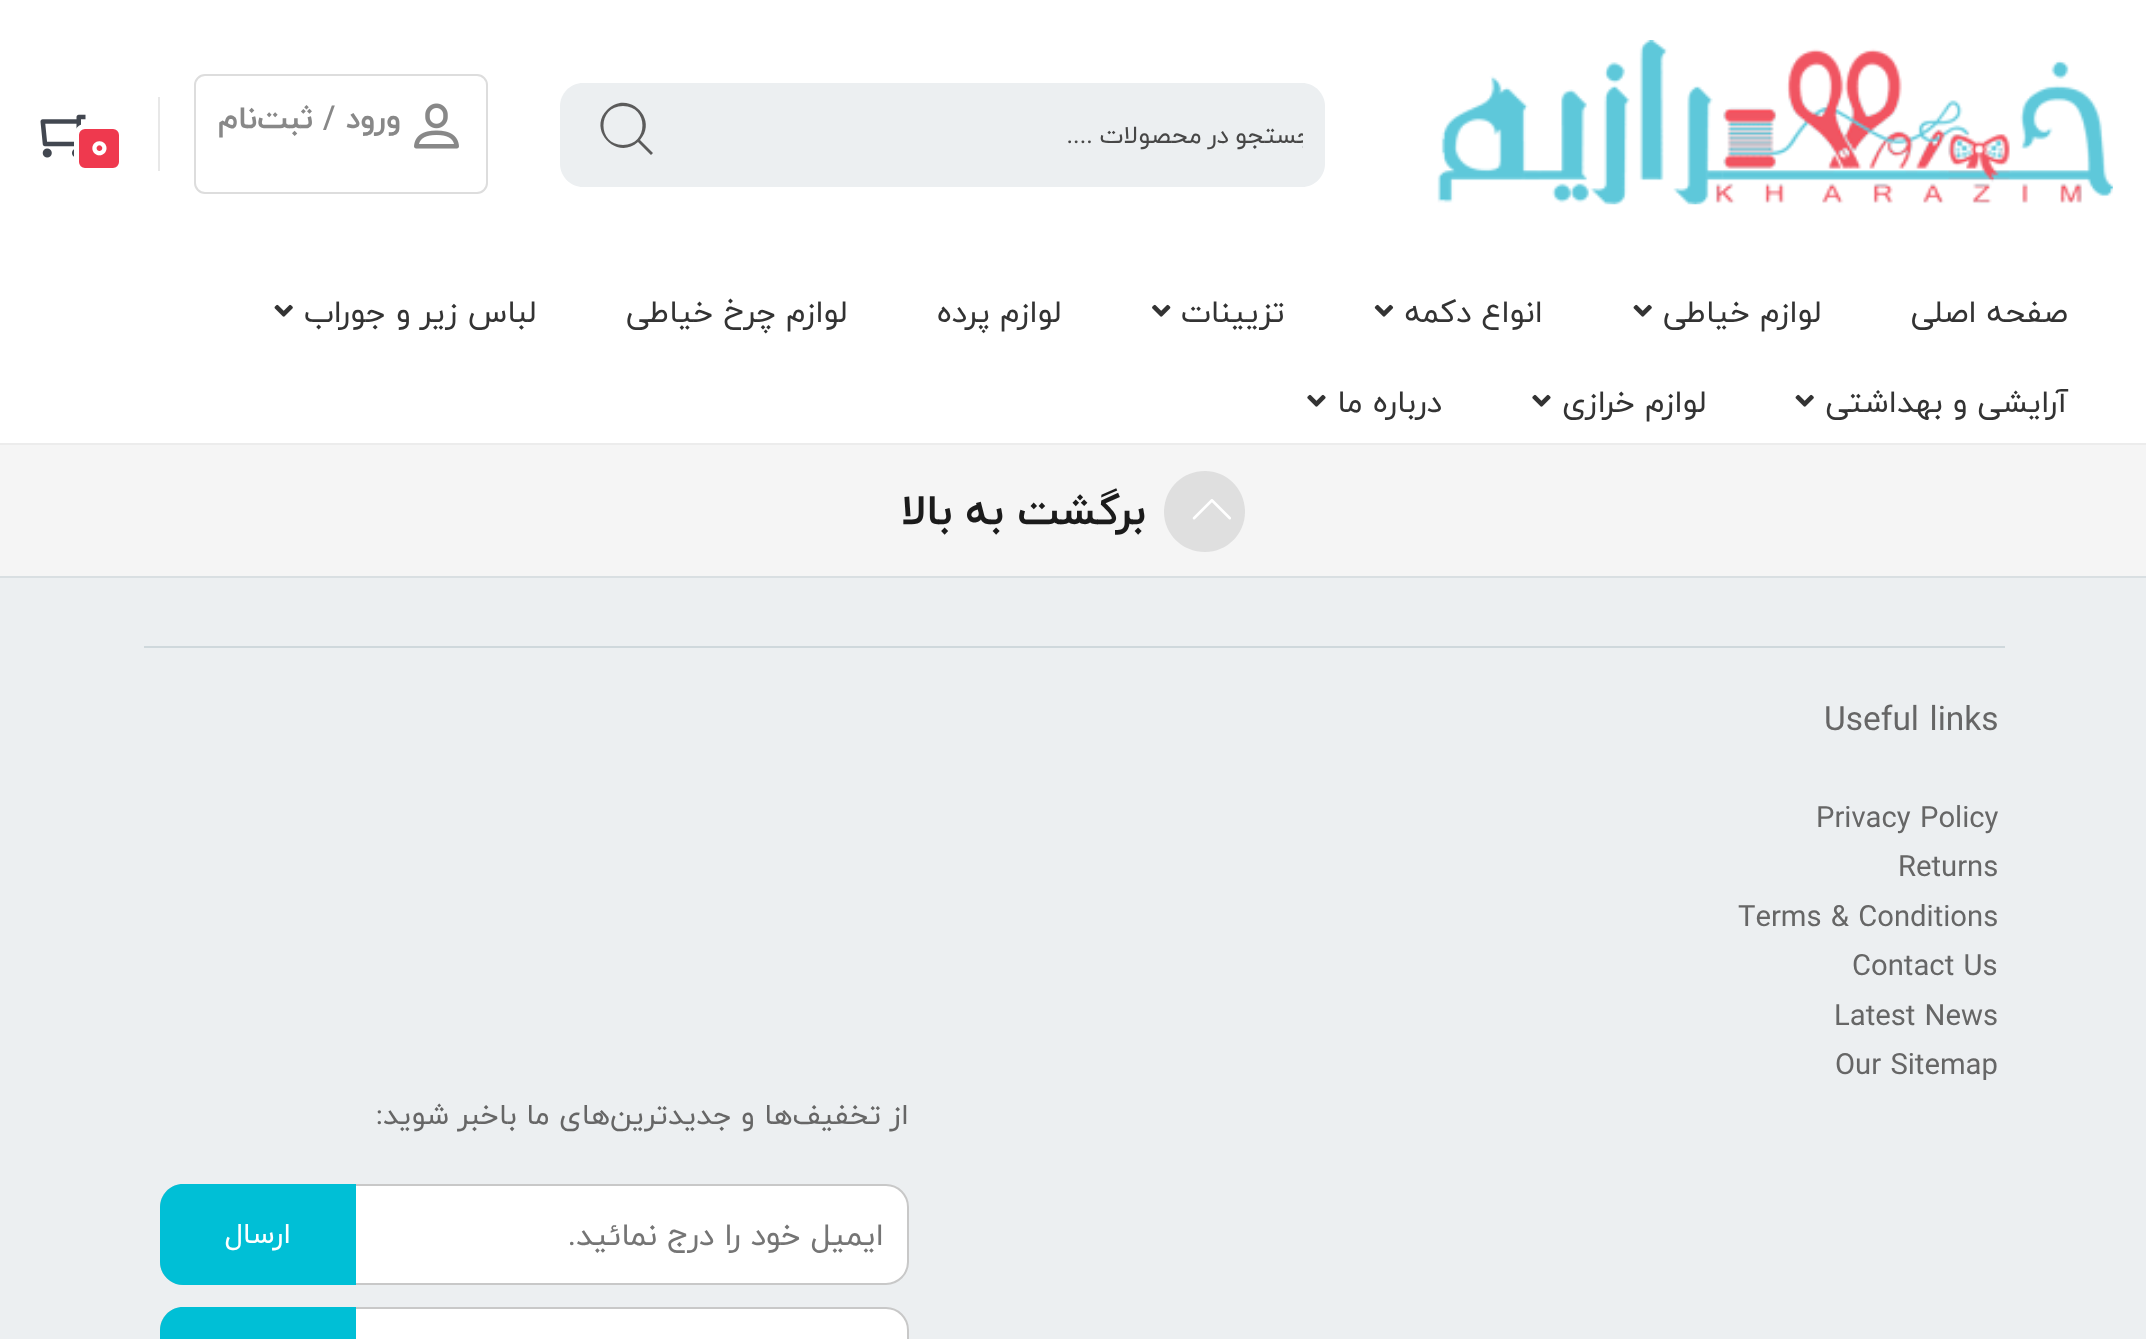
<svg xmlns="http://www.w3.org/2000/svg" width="2146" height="1339">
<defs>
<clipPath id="clip1"><rect x="605" y="115" width="698" height="43"/></clipPath>
</defs>
<rect width="100%" height="100%" fill="#fff"/>
<image x="1437" y="40" width="676" height="165" href="media/1.png"/>
<path d="M583 83h719c12.5 0 23 10.5 23 23v58c0 12.5-10.5 23-23 23h-719z" fill="#eceff1"/>
<g clip-path="url(#clip1)">
<text x="1313" y="143" word-spacing="-1.5" style="font-family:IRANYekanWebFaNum;font-size:25px;letter-spacing:0.7px;direction:rtl;fill:#474747">جستجو در محصولات ....</text>
</g>
<path d="M583 83h112v104h-112c-12.5 0-23-10.5-23-23v-58c0-12.5 10.5-23 23-23z" fill="#eceff1"/>
<path d="M640 140c19-21-12-51-33-30c-20 20 10 51 31 32l13 13l2-2zm-17 5c-26 0-26-39 0-39c26 0 26 39 0 39z" fill="#5b5b5b"/>
<rect x="195" y="75" width="292" height="118" rx="10" fill="none" stroke="#ddd" stroke-width="2"/>
<image x="414" y="103" width="45" height="46" href="media/2.png"/>
<text x="401" y="128" style="font-family:IRANYekanWebFaNum;font-size:31.5px;font-weight:bold;direction:rtl;fill:#888">ورود / ثبت‌نام</text>
<rect x="158" y="97" width="2" height="74" fill="#e8e8e8"/>
<image x="40" y="114" width="46" height="44" href="media/3.png"/>
<rect x="76.5" y="126.5" width="45" height="44" rx="8.5" fill="#ef394e" stroke="#fff" stroke-width="5"/>
<text x="90" y="158" style="font-family:IRANYekanWebFaNum;font-size:38px;font-weight:bold;letter-spacing:-1px;fill:#fff">0</text>
<text x="2068" y="322" style="font-family:IRANYekanWebFaNum;font-size:31.5px;direction:rtl;fill:#333">صفحه اصلی</text>
<text x="1821" y="322" style="font-family:IRANYekanWebFaNum;font-size:31.5px;direction:rtl;fill:#333">لوازم خیاطی</text>
<image x="1633" y="304" width="19" height="13" href="media/4.png"/>
<text x="1543" y="322" style="font-family:IRANYekanWebFaNum;font-size:31.5px;direction:rtl;fill:#333">انواع دکمه</text>
<image x="1374" y="304" width="20" height="13" href="media/5.png"/>
<text x="1285" y="322" style="font-family:IRANYekanWebFaNum;font-size:31.5px;direction:rtl;fill:#333">تزیینات</text>
<image x="1152" y="304" width="19" height="13" href="media/6.png"/>
<text x="1061" y="322" style="font-family:IRANYekanWebFaNum;font-size:31.5px;direction:rtl;fill:#333">لوازم پرده</text>
<text x="847" y="322" style="font-family:IRANYekanWebFaNum;font-size:31.5px;direction:rtl;fill:#333">لوازم چرخ خیاطی</text>
<text x="536" y="322" style="font-family:IRANYekanWebFaNum;font-size:31.5px;direction:rtl;fill:#333">لباس زیر و جوراب</text>
<image x="274" y="304" width="19" height="13" href="media/4.png"/>
<text x="2068" y="412" style="font-family:IRANYekanWebFaNum;font-size:31.5px;direction:rtl;fill:#333">آرایشی و بهداشتی</text>
<image x="1795" y="394" width="19" height="13" href="media/7.png"/>
<text x="1706" y="412" style="font-family:IRANYekanWebFaNum;font-size:31.5px;direction:rtl;fill:#333">لوازم خرازی</text>
<image x="1532" y="394" width="19" height="13" href="media/8.png"/>
<text x="1442" y="412" style="font-family:IRANYekanWebFaNum;font-size:31.5px;direction:rtl;fill:#333">درباره ما</text>
<image x="1307" y="394" width="19" height="13" href="media/8.png"/>
<rect y="445" width="2146" height="131" fill="#f5f5f5"/>
<rect y="443" width="2146" height="2" fill="#ececec"/>
<rect y="576" width="2146" height="2" fill="#d9dfe2"/>
<path d="M1164 512c0-23 18-41 41-41c22 0 40 18 40 41c0 22-18 40-40 40c-23 0-41-18-41-40z" fill="#dfdfdf"/>
<image x="1192" y="499" width="39" height="21" href="media/9.png"/>
<text x="1146" y="524" style="font-family:IRANYekanWebFaNum;font-size:42.75px;font-weight:bold;direction:rtl;fill:#1b1b1b">برگشت به بالا</text>
<rect y="578" width="2146" height="761" fill="#eceff1"/>
<rect x="144" y="646" width="1861" height="2" fill="#cfd8dc"/>
<text x="1824" y="730" style="font-family:IRANYekanWebFaNum;font-size:33.5px;fill:#666">Useful links</text>
<text x="1816" y="827" style="font-family:IRANYekanWebFaNum;font-size:29.25px;fill:#666">Privacy Policy</text>
<text x="1898" y="876" style="font-family:IRANYekanWebFaNum;font-size:29.25px;fill:#666">Returns</text>
<text x="1738" y="926" style="font-family:IRANYekanWebFaNum;font-size:29.25px;fill:#666">Terms &amp; Conditions</text>
<text x="1852" y="975" style="font-family:IRANYekanWebFaNum;font-size:29.25px;fill:#666">Contact Us</text>
<text x="1834" y="1025" style="font-family:IRANYekanWebFaNum;font-size:29.25px;fill:#666">Latest News</text>
<text x="1835" y="1074" style="font-family:IRANYekanWebFaNum;font-size:29.25px;fill:#666">Our Sitemap</text>
<text x="909" y="1124" style="font-family:IRANYekanWebFaNum;font-size:29.25px;direction:rtl;fill:#666">از تخفیف‌ها و جدیدترین‌های ما‌ باخبر شوید:</text>
<rect x="161" y="1185" width="747" height="99" rx="22" fill="#fff" stroke="#c8c8c8" stroke-width="2"/>
<text x="884" y="1245" style="font-family:IRANYekanWebFaNum;font-size:31.5px;direction:rtl;fill:#757575">ایمیل خود را درج نمائید.</text>
<path d="M183 1184h173v101h-173c-12.5 0-23-10.5-23-23v-55c0-12.5 10.5-23 23-23z" fill="#00bfd6"/>
<text x="291" y="1243" style="font-family:IRANYekanWebFaNum;font-size:29.25px;direction:rtl;fill:#fff">ارسال</text>
<rect x="161" y="1308" width="747" height="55" rx="22" fill="#fff" stroke="#c8c8c8" stroke-width="2"/>
<path d="M183 1307h173v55h-173c-12.5 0-23-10.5-23-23v-9c0-12.5 10.5-23 23-23z" fill="#00bfd6"/>
</svg>
